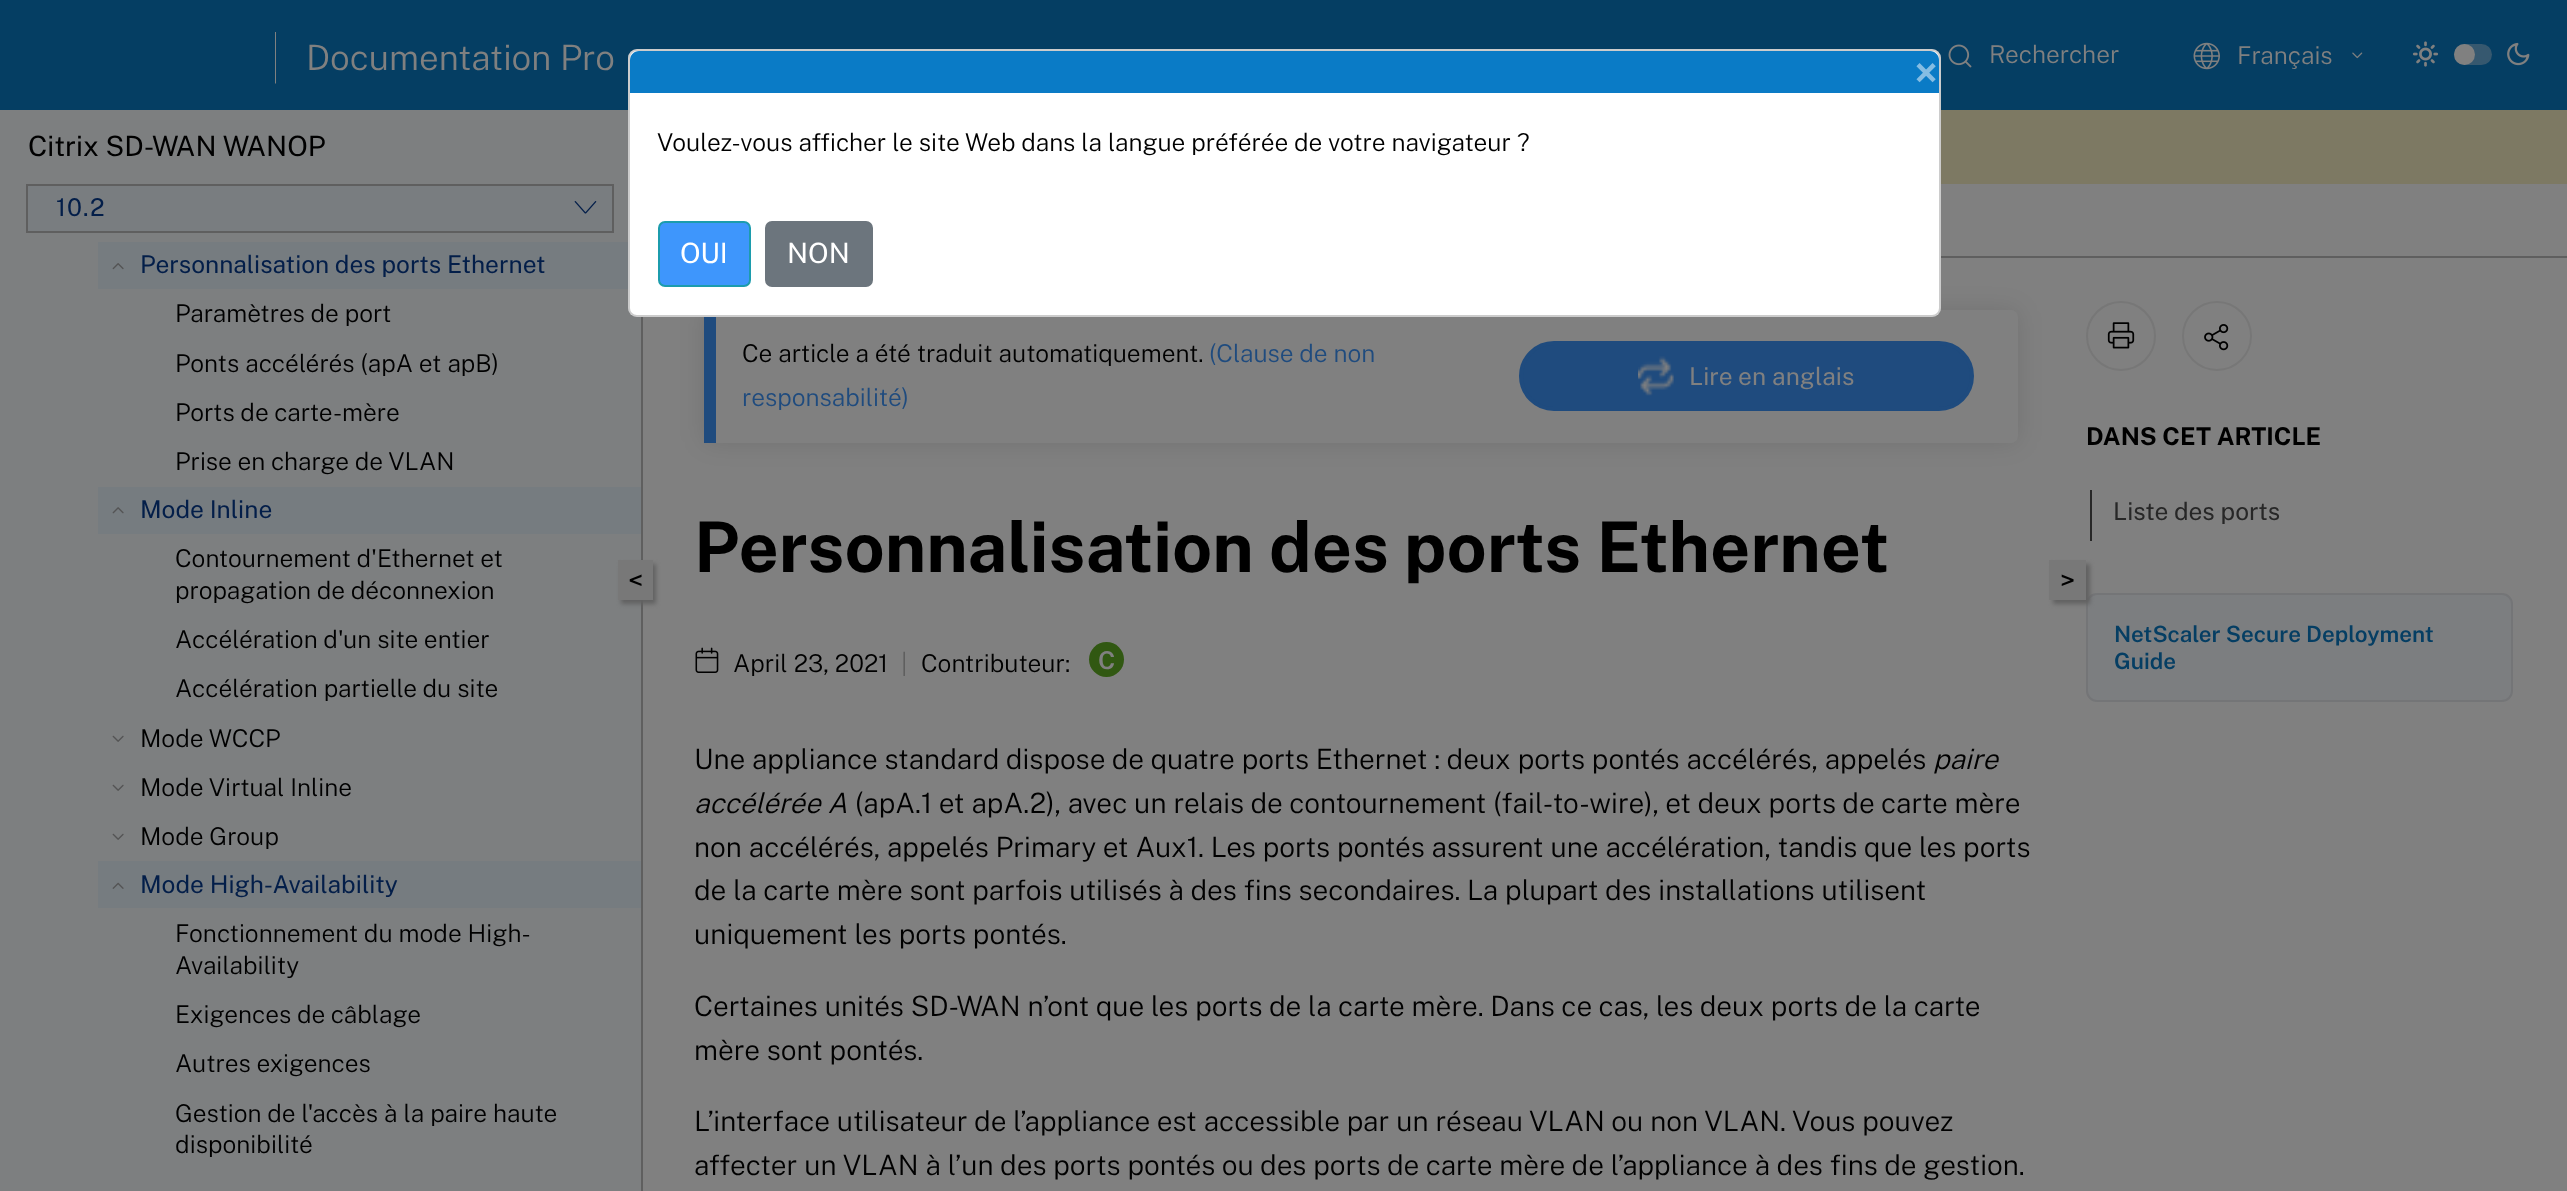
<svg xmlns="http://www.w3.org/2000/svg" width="2567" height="1191">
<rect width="100%" height="100%" fill="#808080"/>
<rect width="2567" height="110" fill="#053e63"/>
<path d="M276 32h-1v51l1 1v-1z" fill="#808080"/>
<text x="306" y="70" style="font-family:Public Sans;font-size:35px;font-weight:300;fill:#808080">Documentation Pro</text>
<image x="1948" y="44" width="24" height="24" href="media/1.png"/>
<text x="1989" y="63" style="font-family:Public Sans;font-size:24.5px;font-weight:300;fill:#808080">Rechercher</text>
<image x="2193" y="42" width="27" height="28" href="media/2.png"/>
<text x="2237" y="64" style="font-family:Public Sans;font-size:24.5px;font-weight:300;fill:#808080">Français</text>
<image x="2352" y="52" width="11" height="7" href="media/3.png"/>
<image x="2412" y="41" width="27" height="26" href="media/4.png"/>
<rect x="2454" y="44" width="38" height="21" rx="10.5" fill="#36586f"/>
<circle cx="2464.5" cy="54.5" r="10.5" fill="#808080"/>
<image x="2507" y="42" width="23" height="24" href="media/5.png"/>
<rect y="110" width="641" height="1081" fill="#7d7f80"/>
<rect x="704" y="310" width="1314" height="133" rx="7" fill="#0000001c" filter="blur(12px)"/>
<rect x="704" y="310" width="1314" height="133" rx="7" fill="#808080"/>
<rect x="628" y="49" width="1313" height="268" rx="9" fill="#fff"/>
<rect x="629" y="50" width="1311" height="266" rx="8" fill="none" stroke="#00000033" stroke-width="2"/>
<path d="M639 51h1291c5 0 9 4 9 9v33h-1309v-33c0-5 4-9 9-9z" fill="#0a7bc6"/>
<text x="1914" y="88" style="font-family:Public Sans;font-size:42px;font-weight:bold;fill:#85bde3">×</text>
<text x="657" y="151" style="font-family:Public Sans;font-size:24.5px;font-weight:300;fill:#000">Voulez-vous afficher le site Web dans la langue préférée de votre navigateur ?</text>
<rect x="659" y="222" width="91" height="64" rx="6" fill="#3e96fc" stroke="#1c9cad" stroke-width="2"/>
<text x="680" y="263" style="font-family:Public Sans;font-size:28px;fill:#fff">OUI</text>
<rect x="766" y="222" width="106" height="64" rx="6" fill="#6c757d" stroke="#6c757d" stroke-width="2"/>
<text x="787" y="263" style="font-family:Public Sans;font-size:28px;fill:#fff">NON</text>
<rect x="641" y="317" width="2" height="874" fill="#5f5f5f"/>
<text x="28" y="156" style="font-family:Public Sans;font-size:28px;fill:#000">Citrix SD-WAN WANOP</text>
<rect x="27" y="185" width="586" height="47" fill="#797d80" stroke="#5f5f5f" stroke-width="2"/>
<text x="56" y="216" style="font-family:Public Sans;font-size:24.5px;letter-spacing:1px;fill:#031e49">10.2</text>
<image x="574" y="201" width="23" height="13" href="media/6.png"/>
<rect x="98" y="242" width="530" height="47" fill="#767c80"/>
<image x="112" y="263" width="12" height="7" href="media/7.png"/>
<text x="140" y="273" style="font-family:Public Sans;font-size:24.5px;fill:#031e49">Personnalisation des ports Ethernet</text>
<text x="175" y="322" style="font-family:Public Sans;font-size:24.5px;font-weight:300;fill:#000">Paramètres de port</text>
<text x="175" y="372" style="font-family:Public Sans;font-size:24.5px;font-weight:300;fill:#000">Ponts accélérés (apA et apB)</text>
<text x="175" y="421" style="font-family:Public Sans;font-size:24.5px;font-weight:300;fill:#000">Ports de carte-mère</text>
<text x="175" y="470" style="font-family:Public Sans;font-size:24.5px;font-weight:300;fill:#000">Prise en charge de VLAN</text>
<rect x="98" y="487" width="543" height="47" fill="#767c80"/>
<image x="112" y="507" width="12" height="7" href="media/8.png"/>
<text x="140" y="518" style="font-family:Public Sans;font-size:24.5px;fill:#031e49">Mode Inline</text>
<text x="175" y="567" style="font-family:Public Sans;font-size:24.5px;font-weight:300;fill:#000">Contournement d'Ethernet et</text>
<text x="175" y="599" style="font-family:Public Sans;font-size:24.5px;font-weight:300;fill:#000">propagation de déconnexion</text>
<text x="175" y="648" style="font-family:Public Sans;font-size:24.5px;font-weight:300;fill:#000">Accélération d'un site entier</text>
<text x="175" y="697" style="font-family:Public Sans;font-size:24.5px;font-weight:300;fill:#000">Accélération partielle du site</text>
<image x="112" y="735" width="12" height="7" href="media/9.png"/>
<text x="140" y="747" style="font-family:Public Sans;font-size:24.5px;font-weight:300;fill:#000">Mode WCCP</text>
<image x="112" y="784" width="12" height="7" href="media/9.png"/>
<text x="140" y="796" style="font-family:Public Sans;font-size:24.5px;font-weight:300;fill:#000">Mode Virtual Inline</text>
<image x="112" y="833" width="12" height="7" href="media/9.png"/>
<text x="140" y="845" style="font-family:Public Sans;font-size:24.5px;font-weight:300;fill:#000">Mode Group</text>
<rect x="98" y="861" width="543" height="47" fill="#767c80"/>
<image x="112" y="882" width="12" height="7" href="media/10.png"/>
<text x="140" y="893" style="font-family:Public Sans;font-size:24.5px;fill:#031e49">Mode High-Availability</text>
<text x="175" y="942" style="font-family:Public Sans;font-size:24.5px;font-weight:300;fill:#000">Fonctionnement du mode High-</text>
<text x="175" y="974" style="font-family:Public Sans;font-size:24.5px;font-weight:300;fill:#000">Availability</text>
<text x="175" y="1023" style="font-family:Public Sans;font-size:24.5px;font-weight:300;fill:#000">Exigences de câblage</text>
<text x="175" y="1072" style="font-family:Public Sans;font-size:24.5px;font-weight:300;fill:#000">Autres exigences</text>
<text x="175" y="1122" style="font-family:Public Sans;font-size:24.5px;font-weight:300;fill:#000">Gestion de l'accès à la paire haute</text>
<text x="175" y="1153" style="font-family:Public Sans;font-size:24.5px;font-weight:300;fill:#000">disponibilité</text>
<rect x="1941" y="110" width="626" height="74" fill="#7d7963"/>
<rect x="1941" y="256" width="626" height="2" fill="#5f5f5f"/>
<rect x="621" y="564" width="35" height="40" fill="#616161" filter="blur(2px)"/>
<rect x="618" y="560" width="35" height="40" fill="#787878"/>
<text x="628" y="590" style="font-family:Public Sans;font-size:28px;fill:#000">&lt;</text>
<rect x="704" y="317" width="12" height="126" fill="#1f4b7e"/>
<text x="742" y="362" style="font-family:Public Sans;font-size:24.5px;font-weight:300;fill:#000">Ce article a été traduit automatiquement.</text>
<text x="1209" y="362" style="font-family:Public Sans;font-size:24.5px;font-weight:300;fill:#1f4b7e">(Clause de non</text>
<text x="742" y="406" style="font-family:Public Sans;font-size:24.5px;font-weight:300;fill:#1f4b7e">responsabilité)</text>
<rect x="1521" y="343" width="451" height="66" rx="33" fill="#1f4b7e" stroke="#1f4b7e" stroke-width="4"/>
<image x="1638" y="356" width="36" height="40" href="media/11.png"/>
<text x="1689" y="385" style="font-family:Public Sans;font-size:24.5px;fill:#808080">Lire en anglais</text>
<text x="694" y="572" style="font-family:Public Sans;font-size:70px;font-weight:bold;fill:#000">Personnalisation des ports Ethernet</text>
<image x="695" y="647" width="24" height="26" href="media/12.png"/>
<text x="733" y="672" style="font-family:Public Sans;font-size:24.5px;font-weight:300;fill:#000">April 23, 2021</text>
<text x="901" y="672" style="font-family:Public Sans;font-size:24.5px;font-weight:300;fill:#5f5f5f">|</text>
<text x="921" y="672" style="font-family:Public Sans;font-size:24.5px;font-weight:300;fill:#000">Contributeur:</text>
<circle cx="1106.5" cy="659.5" r="17.5" fill="#315812"/>
<text x="1098" y="669" style="font-family:Public Sans;font-size:24.5px;font-weight:600;fill:#808080">C</text>
<text x="694" y="769" style="font-family:Public Sans;font-size:28px;font-weight:300;fill:#000">Une appliance standard dispose de quatre ports Ethernet : deux ports pontés accélérés, appelés</text>
<text x="1933" y="769" style="font-family:Public Sans;font-size:28px;font-weight:300;font-style:italic;fill:#000">paire</text>
<text x="694" y="813" style="font-family:Public Sans;font-size:28px;font-weight:300;font-style:italic;fill:#000">accélérée A</text>
<text x="855" y="813" style="font-family:Public Sans;font-size:28px;font-weight:300;fill:#000">(apA.1 et apA.2), avec un relais de contournement (fail-to-wire), et deux ports de carte mère</text>
<text x="694" y="857" style="font-family:Public Sans;font-size:28px;font-weight:300;fill:#000">non accélérés, appelés Primary et Aux1. Les ports pontés assurent une accélération, tandis que les ports</text>
<text x="694" y="900" style="font-family:Public Sans;font-size:28px;font-weight:300;fill:#000">de la carte mère sont parfois utilisés à des fins secondaires. La plupart des installations utilisent</text>
<text x="694" y="944" style="font-family:Public Sans;font-size:28px;font-weight:300;fill:#000">uniquement les ports pontés.</text>
<text x="694" y="1016" style="font-family:Public Sans;font-size:28px;font-weight:300;fill:#000">Certaines unités SD-WAN n’ont que les ports de la carte mère. Dans ce cas, les deux ports de la carte</text>
<text x="694" y="1060" style="font-family:Public Sans;font-size:28px;font-weight:300;fill:#000">mère sont pontés.</text>
<text x="694" y="1131" style="font-family:Public Sans;font-size:28px;font-weight:300;fill:#000">L’interface utilisateur de l’appliance est accessible par un réseau VLAN ou non VLAN. Vous pouvez</text>
<text x="694" y="1175" style="font-family:Public Sans;font-size:28px;font-weight:300;fill:#000">affecter un VLAN à l’un des ports pontés ou des ports de carte mère de l’appliance à des fins de gestion.</text>
<rect x="2087" y="594" width="425" height="107" rx="10" fill="#7c7e80" stroke="#747577" stroke-width="2"/>
<rect x="2053" y="564" width="37" height="40" fill="#616161" filter="blur(2px)"/>
<rect x="2049" y="560" width="37" height="40" fill="#787878"/>
<text x="2060" y="590" style="font-family:Public Sans;font-size:28px;fill:#000">&gt;</text>
<circle cx="2121" cy="336" r="34" fill="none" stroke="#777" stroke-width="2"/>
<image x="2107" y="322" width="28" height="27" href="media/13.png"/>
<circle cx="2217" cy="336" r="34" fill="none" stroke="#00000012" stroke-width="2"/>
<image x="2204" y="324" width="25" height="27" href="media/14.png"/>
<text x="2086" y="445" style="font-family:Public Sans;font-size:24.5px;font-weight:bold;fill:#000">DANS CET ARTICLE</text>
<rect x="2090" y="490" width="2" height="51" fill="#272727"/>
<text x="2113" y="520" style="font-family:Public Sans;font-size:24.5px;fill:#272727">Liste des ports</text>
<text x="2114" y="642" style="font-family:Public Sans;font-size:22.4px;font-weight:600;fill:#053e63">NetScaler Secure Deployment</text>
<text x="2114" y="669" style="font-family:Public Sans;font-size:22.4px;font-weight:600;fill:#053e63">Guide</text>
</svg>
